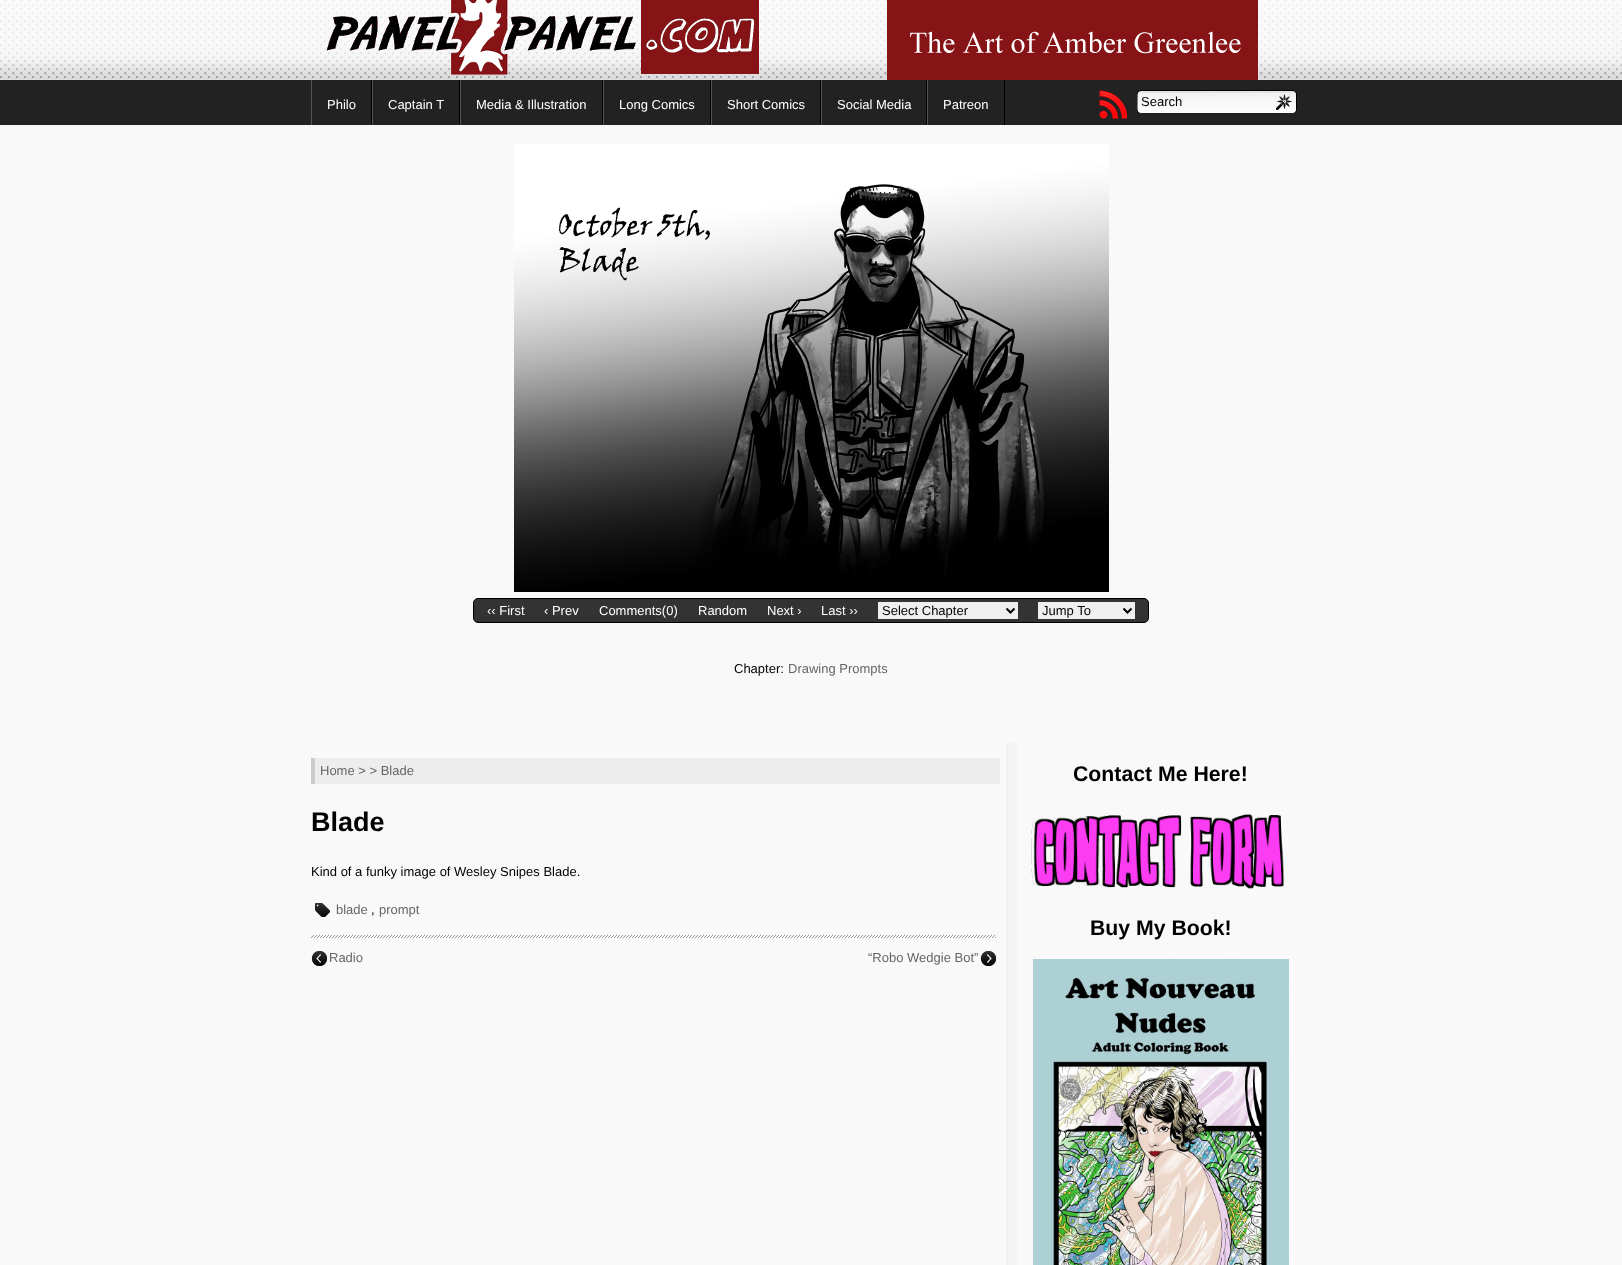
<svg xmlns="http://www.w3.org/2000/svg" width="1622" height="1265">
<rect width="100%" height="100%" fill="#f9f9f9"/>
<image x="0" y="0" width="1622" height="80" href="media/1.png"/>
<image x="326" y="0" width="433" height="75" href="media/2.png"/>
<image x="887" y="0" width="371" height="80" href="media/3.png"/>
<rect y="80" width="1622" height="45" fill="#222"/>
<rect x="371" y="80" width="1" height="45" fill="#000"/>
<rect x="311" y="80" width="1" height="45" fill="#555"/>
<text x="327" y="109" style="font-family:Liberation Sans;font-size:13px;fill:#fff">Philo</text>
<rect x="459" y="80" width="1" height="45" fill="#000"/>
<rect x="372" y="80" width="1" height="45" fill="#555"/>
<text x="388" y="109" style="font-family:Liberation Sans;font-size:13px;fill:#fff">Captain T</text>
<rect x="602" y="80" width="1" height="45" fill="#000"/>
<rect x="460" y="80" width="1" height="45" fill="#555"/>
<text x="476" y="109" style="font-family:Liberation Sans;font-size:13px;fill:#fff">Media &amp; Illustration</text>
<rect x="710" y="80" width="1" height="45" fill="#000"/>
<rect x="603" y="80" width="1" height="45" fill="#555"/>
<text x="619" y="109" style="font-family:Liberation Sans;font-size:13px;fill:#fff">Long Comics</text>
<rect x="820" y="80" width="1" height="45" fill="#000"/>
<rect x="711" y="80" width="1" height="45" fill="#555"/>
<text x="727" y="109" style="font-family:Liberation Sans;font-size:13px;fill:#fff">Short Comics</text>
<rect x="926" y="80" width="1" height="45" fill="#000"/>
<rect x="821" y="80" width="1" height="45" fill="#555"/>
<text x="837" y="109" style="font-family:Liberation Sans;font-size:13px;fill:#fff">Social Media</text>
<rect x="1004" y="80" width="1" height="45" fill="#000"/>
<rect x="927" y="80" width="1" height="45" fill="#555"/>
<text x="943" y="109" style="font-family:Liberation Sans;font-size:13px;fill:#fff">Patreon</text>
<image x="1099" y="90" width="28" height="29" href="media/4.png"/>
<image x="1137" y="90" width="160" height="23" href="media/5.png"/>
<text x="1141" y="106" style="font-family:Liberation Sans;font-size:13px;fill:#000">Search</text>
<image x="514" y="144" width="595" height="448" href="media/6.png"/>
<rect x="473.5" y="598.5" width="675" height="24" rx="4.5" fill="#333" stroke="#000"/>
<text x="487" y="615" style="font-family:Liberation Sans;font-size:13px;fill:#fff">‹‹ First</text>
<text x="544" y="615" style="font-family:Liberation Sans;font-size:13px;fill:#fff">‹ Prev</text>
<text x="599" y="615" style="font-family:Liberation Sans;font-size:13px;fill:#fff">Comments(0)</text>
<text x="698" y="615" style="font-family:Liberation Sans;font-size:13px;fill:#fff">Random</text>
<text x="767" y="615" style="font-family:Liberation Sans;font-size:13px;fill:#fff">Next ›</text>
<text x="821" y="615" style="font-family:Liberation Sans;font-size:13px;fill:#fff">Last ››</text>
<rect x="878" y="602" width="140" height="17" fill="#efefef"/>
<path d="M1006.5 608.5l4 4l4-4" fill="none" stroke="#000" stroke-width="2"/>
<text x="882" y="615" style="font-family:Liberation Sans;font-size:13px;fill:#000">Select Chapter</text>
<rect x="1038" y="602" width="97" height="17" fill="#efefef"/>
<path d="M1123.5 608.5l4 4l4-4" fill="none" stroke="#000" stroke-width="2"/>
<text x="1042" y="615" style="font-family:Liberation Sans;font-size:13px;fill:#000">Jump To</text>
<text x="734" y="673" style="font-family:Liberation Sans;font-size:13px;fill:#000">Chapter:</text>
<text x="788" y="673" style="font-family:Liberation Sans;font-size:13px;fill:#666">Drawing Prompts</text>
<image x="1005" y="743" width="12" height="522" href="media/7.png"/>
<rect x="315" y="758" width="685" height="26" fill="#ededed"/>
<rect x="311" y="758" width="4" height="26" fill="#ccc"/>
<text x="320" y="775" style="font-family:Liberation Sans;font-size:13px;fill:#666">Home &gt; &gt; Blade</text>
<text x="311" y="831" style="font-family:Liberation Sans;font-size:27px;font-weight:bold;fill:#000">Blade</text>
<text x="311" y="876" style="font-family:Liberation Sans;font-size:13px;fill:#000">Kind of a funky image of Wesley Snipes Blade.</text>
<image x="315" y="903" width="15" height="14" href="media/8.png"/>
<text x="336" y="914" style="font-family:Liberation Sans;font-size:13px;fill:#666">blade</text>
<text x="371" y="914" style="font-family:Liberation Sans;font-size:13px;fill:#000">,</text>
<text x="379" y="914" style="font-family:Liberation Sans;font-size:13px;fill:#666">prompt</text>
<image x="311" y="935" width="685" height="3" href="media/9.png"/>
<image x="311" y="951" width="16" height="15" href="media/10.png"/>
<text x="329" y="962" style="font-family:Liberation Sans;font-size:13px;fill:#666">Radio</text>
<image x="980" y="951" width="16" height="15" href="media/11.png"/>
<text x="868" y="962" style="font-family:Liberation Sans;font-size:13px;fill:#666">“Robo Wedgie Bot”</text>
<text x="1073" y="781" style="font-family:Liberation Sans;font-size:21.25px;font-weight:bold;fill:#000">Contact Me Here!</text>
<image x="1031" y="814" width="254" height="75" href="media/12.png"/>
<text x="1090" y="935" style="font-family:Liberation Sans;font-size:21.25px;font-weight:bold;fill:#000">Buy My Book!</text>
<image x="1033" y="959" width="256" height="306" href="media/13.png"/>
</svg>
